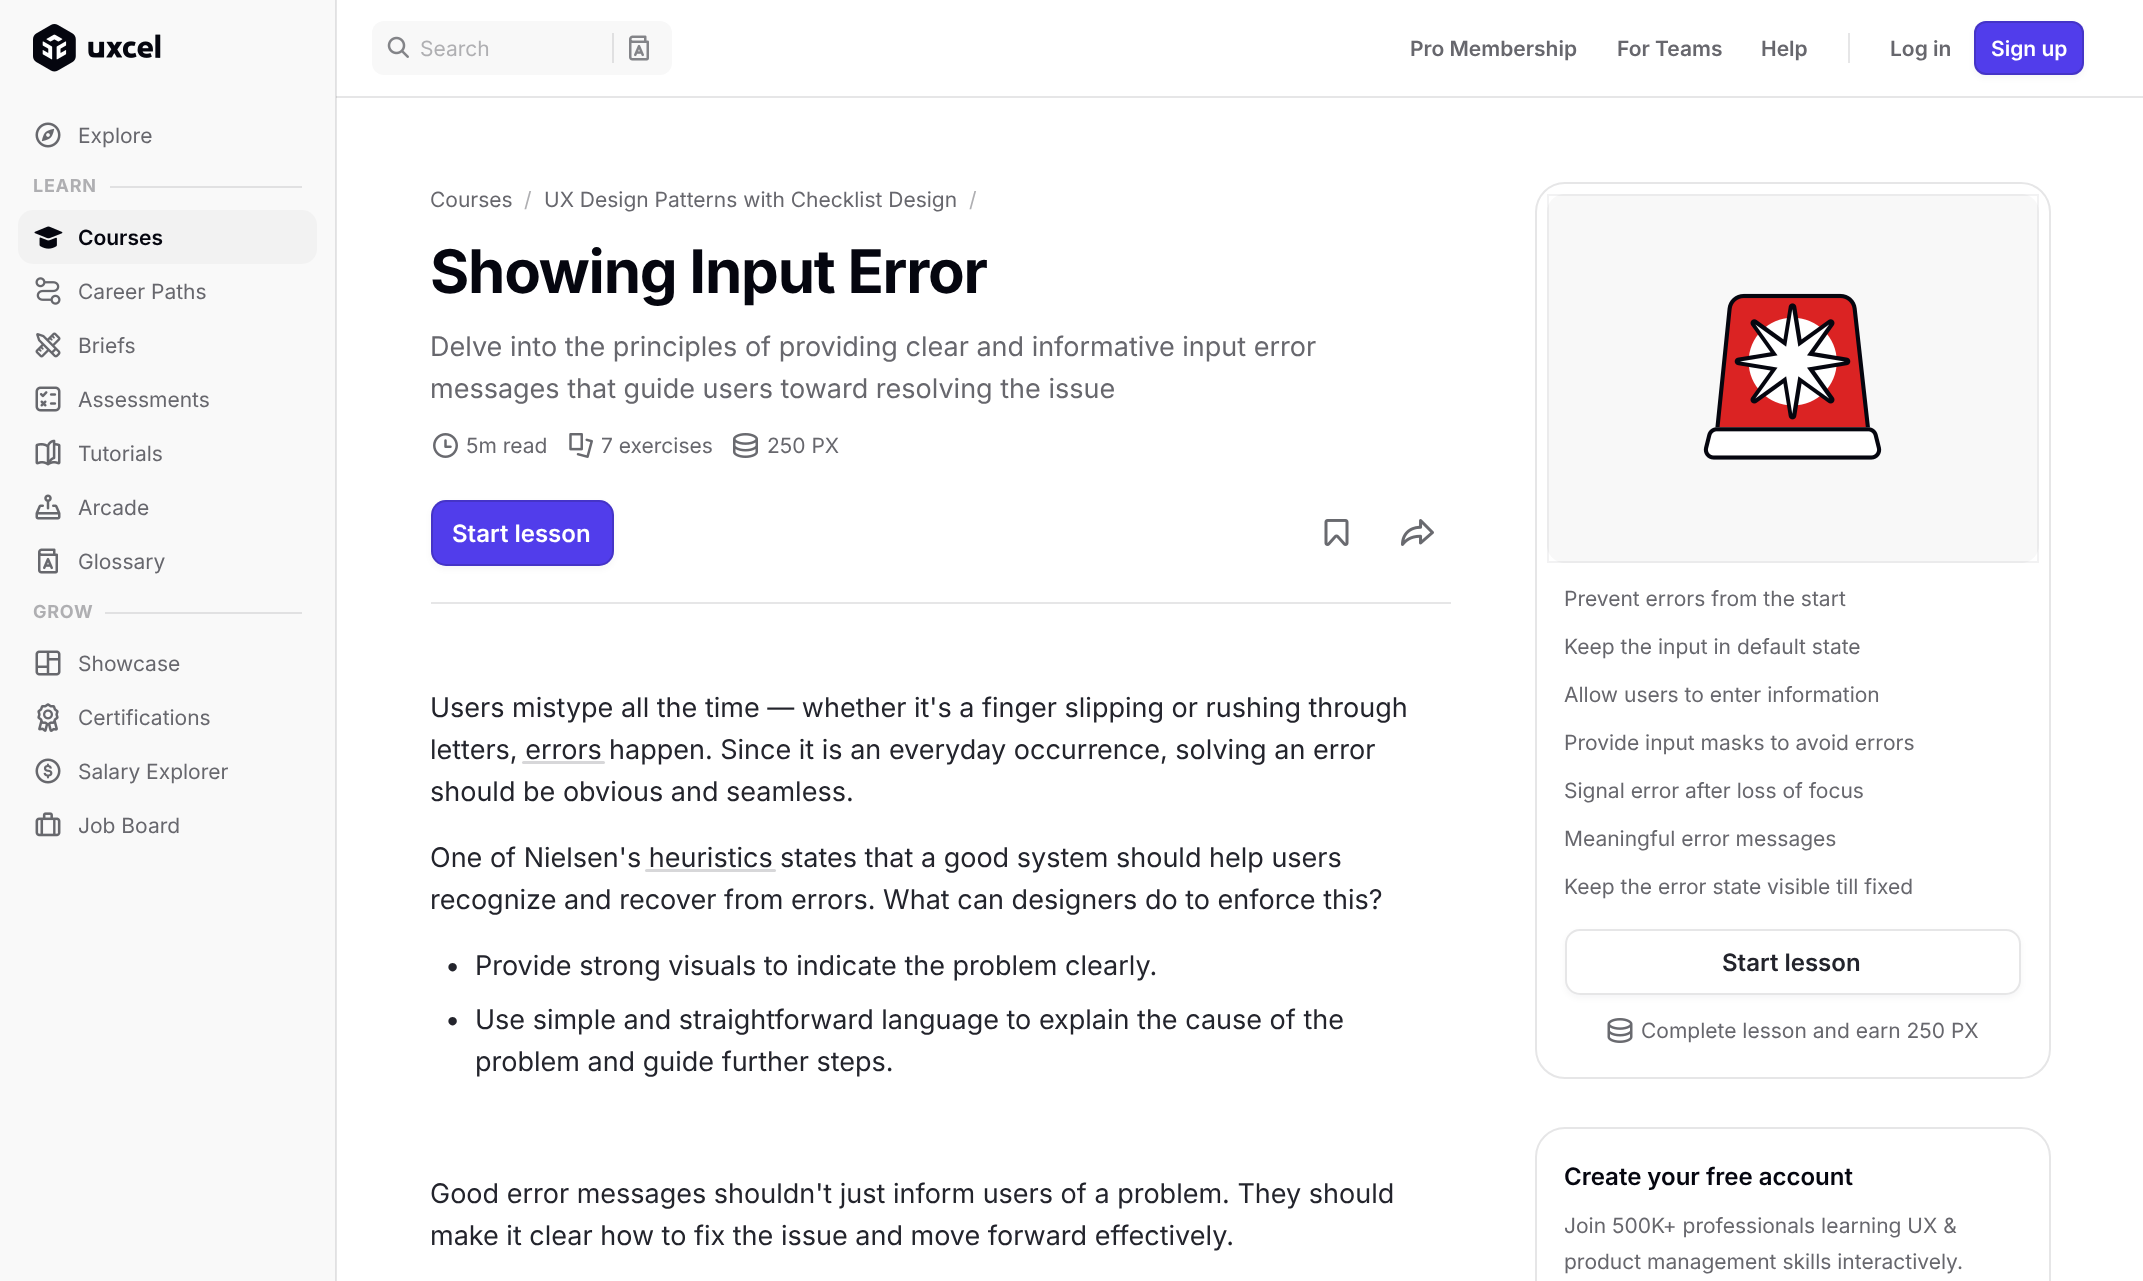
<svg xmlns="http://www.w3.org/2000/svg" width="2143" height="1281">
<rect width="100%" height="100%" fill="#fff"/>
<rect x="336" width="1" height="1281" fill="#e6e6e7"/>
<rect width="335" height="1281" fill="#f9f9f9"/>
<rect x="335" width="1" height="1281" fill="#e1e1e2"/>
<image x="33" y="24" width="128" height="48" href="media/1.png"/>
<image x="35" y="122" width="26" height="26" href="media/2.png"/>
<text x="78" y="143" style="font-family:Inter;font-size:21px;fill:#67676d">Explore</text>
<text x="33" y="192" style="font-family:Inter;font-size:18px;font-weight:bold;letter-spacing:0.75px;fill:#afafb2">LEARN</text>
<rect x="110" y="186" width="192" height="2" fill="#e1e1e2"/>
<rect x="18" y="210" width="299" height="54" rx="15" fill="#f2f2f2"/>
<image x="34" y="226" width="29" height="23" href="media/3.png"/>
<text x="78" y="245" style="font-family:Inter;font-size:21px;font-weight:600;fill:#05060f">Courses</text>
<image x="35" y="277" width="26" height="28" href="media/4.png"/>
<text x="78" y="299" style="font-family:Inter;font-size:21px;fill:#67676d">Career Paths</text>
<image x="35" y="332" width="26" height="26" href="media/5.png"/>
<text x="78" y="353" style="font-family:Inter;font-size:21px;fill:#67676d">Briefs</text>
<image x="35" y="386" width="26" height="26" href="media/6.png"/>
<text x="78" y="407" style="font-family:Inter;font-size:21px;fill:#67676d">Assessments</text>
<image x="35" y="439" width="26" height="27" href="media/7.png"/>
<text x="78" y="461" style="font-family:Inter;font-size:21px;fill:#67676d">Tutorials</text>
<image x="35" y="494" width="26" height="26" href="media/8.png"/>
<text x="78" y="515" style="font-family:Inter;font-size:21px;fill:#67676d">Arcade</text>
<image x="38" y="548" width="20" height="26" href="media/9.png"/>
<text x="78" y="569" style="font-family:Inter;font-size:21px;fill:#67676d">Glossary</text>
<text x="33" y="618" style="font-family:Inter;font-size:18px;font-weight:bold;letter-spacing:0.75px;fill:#afafb2">GROW</text>
<rect x="105" y="612" width="197" height="2" fill="#e1e1e2"/>
<image x="35" y="650" width="26" height="26" href="media/10.png"/>
<text x="78" y="671" style="font-family:Inter;font-size:21px;fill:#67676d">Showcase</text>
<image x="37" y="703" width="22" height="29" href="media/11.png"/>
<text x="78" y="725" style="font-family:Inter;font-size:21px;fill:#67676d">Certifications</text>
<image x="35" y="758" width="26" height="26" href="media/12.png"/>
<text x="78" y="779" style="font-family:Inter;font-size:21px;fill:#67676d">Salary Explorer</text>
<image x="35" y="812" width="26" height="25" href="media/13.png"/>
<text x="78" y="833" style="font-family:Inter;font-size:21px;fill:#67676d">Job Board</text>
<rect x="336" y="96" width="1807" height="2" fill="#e6e6e7"/>
<rect x="336" y="96" width="1" height="2" fill="#d0d0d1"/>
<rect x="372" y="21" width="300" height="54" rx="12" fill="#f8f8f8"/>
<image x="387" y="36" width="22" height="22" href="media/14.png"/>
<text x="420" y="56" style="font-family:Inter;font-size:21px;fill:#afafb2">Search</text>
<rect x="612" y="33" width="2" height="30" fill="#e0e0e1"/>
<image x="629" y="35" width="20" height="26" href="media/15.png"/>
<text x="1410" y="56" style="font-family:Inter;font-size:21px;font-weight:600;fill:#67676d">Pro Membership</text>
<text x="1617" y="56" style="font-family:Inter;font-size:21px;font-weight:600;fill:#67676d">For Teams</text>
<text x="1761" y="56" style="font-family:Inter;font-size:21px;font-weight:600;fill:#67676d">Help</text>
<rect x="1848" y="33" width="2" height="30" fill="#e6e6e7"/>
<text x="1890" y="56" style="font-family:Inter;font-size:21px;font-weight:600;fill:#67676d">Log in</text>
<rect x="1974" y="24" width="110" height="54" rx="12" fill="#05060f0a" filter="blur(3px)"/>
<rect x="1974" y="21" width="110" height="54" rx="12" fill="#513deb"/>
<rect x="1975" y="22" width="108" height="52" rx="11" fill="none" stroke="#05060f29" stroke-width="2"/>
<text x="1991" y="56" style="font-family:Inter;font-size:21px;font-weight:600;fill:#fff">Sign up</text>
<rect x="431" y="602" width="1020" height="2" fill="#e6e6e7"/>
<text x="430" y="207" style="font-family:Inter;font-size:21px;fill:#67676d">Courses</text>
<text x="524" y="207" style="font-family:Inter;font-size:21px;fill:#afafb2">/</text>
<text x="544" y="207" style="font-family:Inter;font-size:21px;fill:#67676d">UX Design Patterns with Checklist Design</text>
<text x="969" y="207" style="font-family:Inter;font-size:21px;fill:#afafb2">/</text>
<text x="430" y="293" style="font-family:Inter;font-size:60px;font-weight:bold;letter-spacing:-1.25px;fill:#05060f">Showing Input Error</text>
<text x="430" y="356" style="font-family:Inter;font-size:27px;fill:#67676d">Delve into the principles of providing clear and informative input error</text>
<text x="430" y="398" style="font-family:Inter;font-size:27px;fill:#67676d">messages that guide users toward resolving the issue</text>
<image x="433" y="433" width="25" height="25" href="media/16.png"/>
<text x="466" y="453" style="font-family:Inter;font-size:21px;fill:#67676d">5m read</text>
<image x="569" y="433" width="24" height="25" href="media/17.png"/>
<text x="601" y="453" style="font-family:Inter;font-size:21px;fill:#67676d">7 exercises</text>
<image x="733" y="433" width="25" height="25" href="media/18.png"/>
<text x="767" y="453" style="font-family:Inter;font-size:21px;fill:#67676d">250 PX</text>
<rect x="431" y="503" width="183" height="66" rx="15" fill="#05060f0a" filter="blur(3px)"/>
<rect x="431" y="500" width="183" height="66" rx="15" fill="#513deb"/>
<rect x="432" y="501" width="181" height="64" rx="14" fill="none" stroke="#05060f29" stroke-width="2"/>
<text x="452" y="542" style="font-family:Inter;font-size:24px;font-weight:600;fill:#fff">Start lesson</text>
<image x="1324" y="519" width="25" height="27" href="media/19.png"/>
<image x="1401" y="519" width="33" height="27" href="media/20.png"/>
<text x="430" y="717" style="font-family:Inter;font-size:27px;fill:#23242c">Users mistype all the time — whether it's a finger slipping or rushing through</text>
<text x="430" y="759" style="font-family:Inter;font-size:27px;fill:#23242c">letters, errors</text>
<text x="609" y="759" style="font-family:Inter;font-size:27px;fill:#23242c">happen. Since it is an everyday occurrence, solving an error</text>
<rect x="522" y="761" width="83" height="3" rx="1.5" fill="#d7d7d9"/>
<text x="430" y="801" style="font-family:Inter;font-size:27px;fill:#23242c">should be obvious and seamless.</text>
<text x="430" y="867" style="font-family:Inter;font-size:27px;fill:#23242c">One of Nielsen's heuristics</text>
<text x="780" y="867" style="font-family:Inter;font-size:27px;fill:#23242c">states that a good system should help users</text>
<rect x="645" y="869" width="131" height="3" rx="1.5" fill="#d7d7d9"/>
<text x="430" y="909" style="font-family:Inter;font-size:27px;fill:#23242c">recognize and recover from errors. What can designers do to enforce this?</text>
<text x="445" y="975" style="font-family:Inter;font-size:27px;fill:#23242c">•</text>
<text x="475" y="975" style="font-family:Inter;font-size:27px;fill:#23242c">Provide strong visuals to indicate the problem clearly.</text>
<text x="445" y="1029" style="font-family:Inter;font-size:27px;fill:#23242c">•</text>
<text x="475" y="1029" style="font-family:Inter;font-size:27px;fill:#23242c">Use simple and straightforward language to explain the cause of the</text>
<text x="475" y="1071" style="font-family:Inter;font-size:27px;fill:#23242c">problem and guide further steps.</text>
<text x="430" y="1203" style="font-family:Inter;font-size:27px;fill:#23242c">Good error messages shouldn't just inform users of a problem. They should</text>
<text x="430" y="1245" style="font-family:Inter;font-size:27px;fill:#23242c">make it clear how to fix the issue and move forward effectively.</text>
<rect x="1536" y="183" width="514" height="895" rx="29" fill="none" stroke="#e6e6e7" stroke-width="2"/>
<rect x="1547" y="194" width="492" height="369" rx="18" fill="#f8f8f8"/>
<image x="1703" y="293" width="179" height="167" href="media/21.png"/>
<rect x="1548" y="195" width="490" height="367" fill="none" stroke="#05060f0d" stroke-width="2"/>
<text x="1564" y="606" style="font-family:Inter;font-size:21px;fill:#67676d">Prevent errors from the start</text>
<text x="1564" y="654" style="font-family:Inter;font-size:21px;fill:#67676d">Keep the input in default state</text>
<text x="1564" y="702" style="font-family:Inter;font-size:21px;fill:#67676d">Allow users to enter information</text>
<text x="1564" y="750" style="font-family:Inter;font-size:21px;fill:#67676d">Provide input masks to avoid errors</text>
<text x="1564" y="798" style="font-family:Inter;font-size:21px;fill:#67676d">Signal error after loss of focus</text>
<text x="1564" y="846" style="font-family:Inter;font-size:21px;fill:#67676d">Meaningful error messages</text>
<text x="1564" y="894" style="font-family:Inter;font-size:21px;fill:#67676d">Keep the error state visible till fixed</text>
<rect x="1565" y="932" width="456" height="66" rx="15" fill="#05060f0a" filter="blur(3px)"/>
<rect x="1565" y="929" width="456" height="66" rx="15" fill="#fff"/>
<rect x="1566" y="930" width="454" height="64" rx="14" fill="none" stroke="#05060f1a" stroke-width="2"/>
<text x="1722" y="971" style="font-family:Inter;font-size:24px;font-weight:600;fill:#23242c">Start lesson</text>
<image x="1607" y="1018" width="26" height="25" href="media/22.png"/>
<text x="1641" y="1038" style="font-family:Inter;font-size:21px;fill:#67676d">Complete lesson and earn 250 PX</text>
<rect x="1536" y="1128" width="514" height="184" rx="29" fill="none" stroke="#e6e6e7" stroke-width="2"/>
<text x="1564" y="1185" style="font-family:Inter;font-size:24px;font-weight:600;fill:#05060f">Create your free account</text>
<text x="1564" y="1233" style="font-family:Inter;font-size:21px;fill:#67676d">Join 500K+ professionals learning UX &amp;</text>
<text x="1564" y="1269" style="font-family:Inter;font-size:21px;fill:#67676d">product management skills interactively.</text>
</svg>
